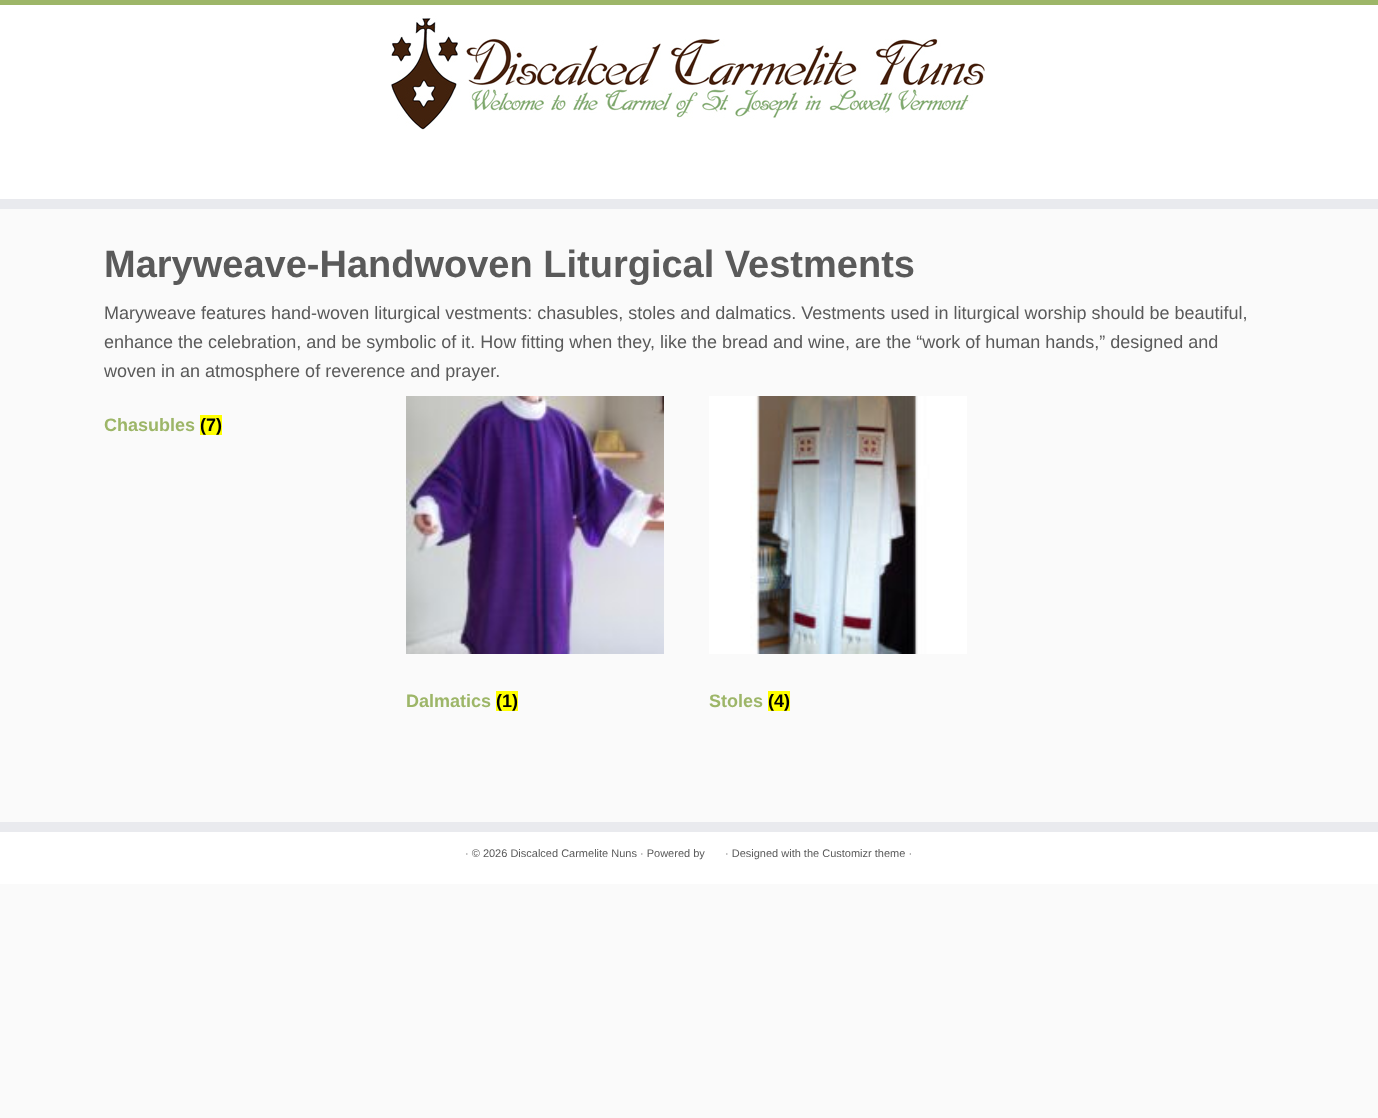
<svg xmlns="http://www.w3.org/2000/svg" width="1378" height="1118">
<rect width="100%" height="100%" fill="#fafafa"/>
<rect y="5" width="1378" height="194" fill="#fff"/>
<rect width="1378" height="5" fill="#9db668"/>
<rect y="199" width="1378" height="10" fill="#e9eaee"/>
<image x="391" y="16" width="594" height="114" href="media/1.png"/>
<text x="104" y="277" style="font-family:Liberation Sans;font-size:38px;font-weight:bold;fill:#5a5a5a">Maryweave-Handwoven Liturgical Vestments</text>
<text x="104" y="319" style="font-family:Liberation Sans;font-size:18px;fill:#5a5a5a">Maryweave features hand-woven liturgical vestments: chasubles, stoles and dalmatics. Vestments used in liturgical worship should be beautiful,</text>
<text x="104" y="348" style="font-family:Liberation Sans;font-size:18px;fill:#5a5a5a">enhance the celebration, and be symbolic of it. How fitting when they, like the bread and wine, are the “work of human hands,” designed and</text>
<text x="104" y="377" style="font-family:Liberation Sans;font-size:18px;fill:#5a5a5a">woven in an atmosphere of reverence and prayer.</text>
<text x="104" y="431" style="font-family:Liberation Sans;font-size:18px;font-weight:bold;fill:#9db668">Chasubles</text>
<rect x="200" y="415" width="22" height="20" fill="#ff0"/>
<text x="200" y="431" style="font-family:Liberation Sans;font-size:18px;font-weight:bold;fill:#000">(7)</text>
<image x="406" y="396" width="258" height="258" href="media/2.png"/>
<text x="406" y="707" style="font-family:Liberation Sans;font-size:18px;font-weight:bold;fill:#9db668">Dalmatics</text>
<rect x="496" y="691" width="22" height="20" fill="#ff0"/>
<text x="496" y="707" style="font-family:Liberation Sans;font-size:18px;font-weight:bold;fill:#000">(1)</text>
<image x="709" y="396" width="258" height="258" href="media/3.png"/>
<text x="709" y="707" style="font-family:Liberation Sans;font-size:18px;font-weight:bold;fill:#9db668">Stoles</text>
<rect x="768" y="691" width="22" height="20" fill="#ff0"/>
<text x="768" y="707" style="font-family:Liberation Sans;font-size:18px;font-weight:bold;fill:#000">(4)</text>
<rect y="822" width="1378" height="10" fill="#e9eaee"/>
<rect y="832" width="1378" height="52" fill="#fff"/>
<text x="465" y="857" style="font-family:Liberation Sans;font-size:11px;fill:#5a5a5a">· © 2026 Discalced Carmelite Nuns · Powered by</text>
<text x="725" y="857" style="font-family:Liberation Sans;font-size:11px;fill:#5a5a5a">· Designed with the Customizr theme ·</text>
</svg>
